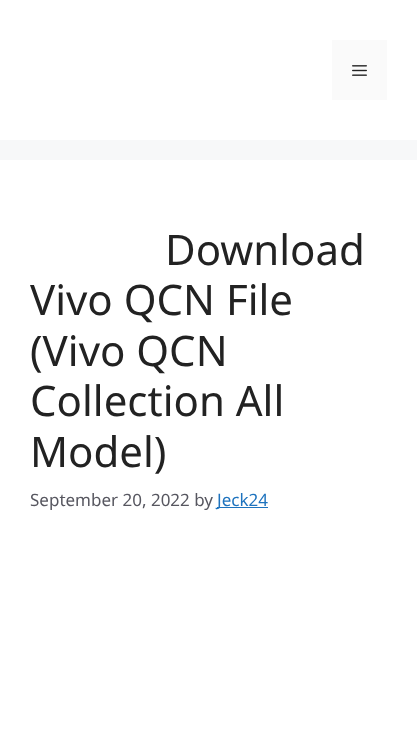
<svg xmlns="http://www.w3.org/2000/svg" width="417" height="746">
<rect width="100%" height="100%" fill="#f7f8f9"/>
<rect width="417" height="140" fill="#fff"/>
<rect x="332" y="40" width="55" height="60" fill="#fafafa"/>
<image x="352" y="65" width="15" height="11" href="media/1.png"/>
<rect y="160" width="417" height="586" fill="#fff"/>
<text x="165" y="265" style="font-family:Noto Sans;font-size:42px;fill:#222">Download</text>
<text x="30" y="315" style="font-family:Noto Sans;font-size:42px;fill:#222">Vivo QCN File</text>
<text x="30" y="366" style="font-family:Noto Sans;font-size:42px;fill:#222">(Vivo QCN</text>
<text x="30" y="416" style="font-family:Noto Sans;font-size:42px;fill:#222">Collection All</text>
<text x="30" y="467" style="font-family:Noto Sans;font-size:42px;fill:#222">Model)</text>
<text x="30" y="506" style="font-family:Noto Sans;font-size:17px;fill:#575760">September 20, 2022 by</text>
<rect x="217" y="507" width="51" height="1" fill="#1e73be"/>
<text x="217" y="506" style="font-family:Noto Sans;font-size:17px;fill:#1e73be">Jeck24</text>
</svg>
